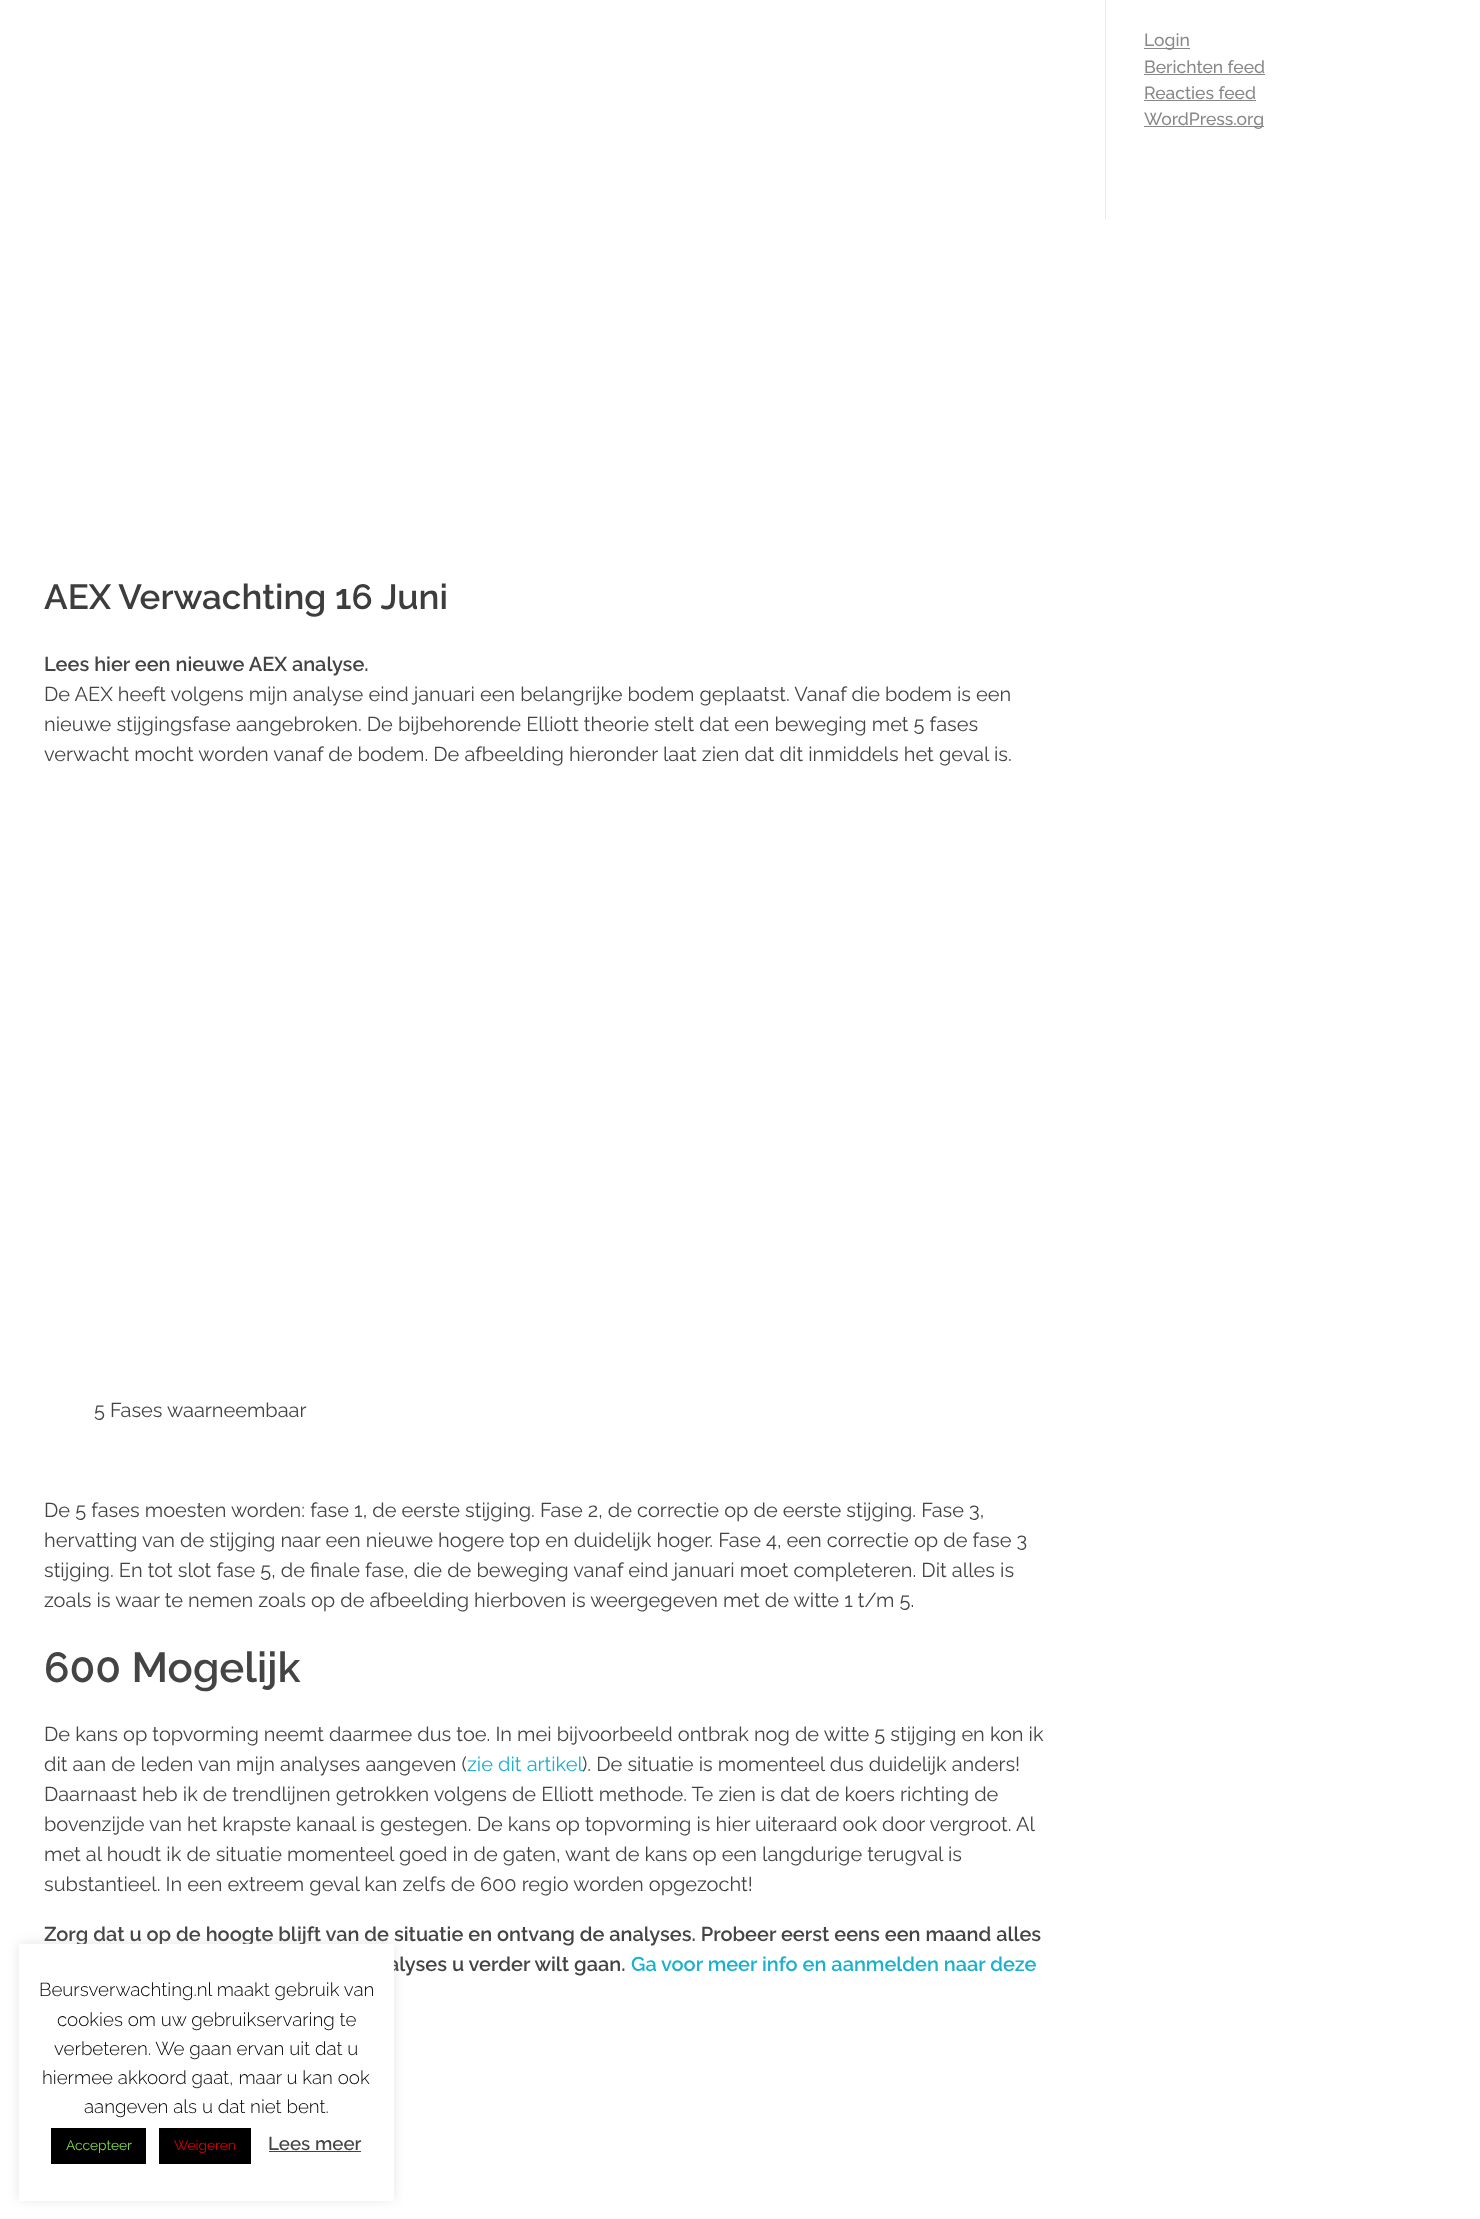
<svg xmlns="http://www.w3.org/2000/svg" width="1480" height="2219">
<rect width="100%" height="100%" fill="#fff"/>
<rect x="1105" width="1" height="219" fill="#eaeaea"/>
<rect x="1144" y="48" width="46" height="1" fill="#888"/>
<text x="1144" y="46" style="font-family:Raleway;font-size:17.5px;font-weight:500;fill:#888">Login</text>
<text x="1144" y="73" style="font-family:Raleway;font-size:17.5px;font-weight:500;fill:#888">Berichten feed</text>
<rect x="1144" y="74" width="121" height="1" fill="#888"/>
<text x="1144" y="99" style="font-family:Raleway;font-size:17.5px;font-weight:500;fill:#888">Reacties feed</text>
<rect x="1144" y="100" width="112" height="1" fill="#888"/>
<rect x="1144" y="126" width="120" height="1" fill="#888"/>
<text x="1144" y="125" style="font-family:Raleway;font-size:17.5px;font-weight:500;fill:#888">WordPress.org</text>
<text x="44" y="609" style="font-family:Raleway;font-size:35px;font-weight:600;fill:#3d3d3d">AEX Verwachting 16 Juni</text>
<text x="44" y="671" style="font-family:Raleway;font-size:20px;font-weight:600;fill:#444">Lees hier een nieuwe AEX analyse.</text>
<text x="44" y="701" style="font-family:Raleway;font-size:20px;fill:#444">De AEX heeft volgens mijn analyse eind januari een belangrijke bodem geplaatst. Vanaf die bodem is een</text>
<text x="44" y="731" style="font-family:Raleway;font-size:20px;fill:#444">nieuwe stijgingsfase aangebroken. De bijbehorende Elliott theorie stelt dat een beweging met 5 fases</text>
<text x="44" y="761" style="font-family:Raleway;font-size:20px;fill:#444">verwacht mocht worden vanaf de bodem. De afbeelding hieronder laat zien dat dit inmiddels het geval is.</text>
<text x="94" y="1417" style="font-family:Raleway;font-size:20px;fill:#444">5 Fases waarneembaar</text>
<text x="44" y="1517" style="font-family:Raleway;font-size:20px;fill:#444">De 5 fases moesten worden: fase 1, de eerste stijging. Fase 2, de correctie op de eerste stijging. Fase 3,</text>
<text x="44" y="1547" style="font-family:Raleway;font-size:20px;fill:#444">hervatting van de stijging naar een nieuwe hogere top en duidelijk hoger. Fase 4, een correctie op de fase 3</text>
<text x="44" y="1577" style="font-family:Raleway;font-size:20px;fill:#444">stijging. En tot slot fase 5, de finale fase, die de beweging vanaf eind januari moet completeren. Dit alles is</text>
<text x="44" y="1607" style="font-family:Raleway;font-size:20px;fill:#444">zoals is waar te nemen zoals op de afbeelding hierboven is weergegeven met de witte 1 t/m 5.</text>
<text x="44" y="1682" style="font-family:Raleway;font-size:42px;font-weight:600;fill:#444">600 Mogelijk</text>
<text x="44" y="1741" style="font-family:Raleway;font-size:20px;fill:#444">De kans op topvorming neemt daarmee dus toe. In mei bijvoorbeeld ontbrak nog de witte 5 stijging en kon ik</text>
<text x="44" y="1771" style="font-family:Raleway;font-size:20px;fill:#444">dit aan de leden van mijn analyses aangeven (</text>
<text x="467" y="1771" style="font-family:Raleway;font-size:20px;fill:#1bb0ce">zie dit artikel</text>
<text x="582" y="1771" style="font-family:Raleway;font-size:20px;fill:#444">). De situatie is momenteel dus duidelijk anders!</text>
<text x="44" y="1801" style="font-family:Raleway;font-size:20px;fill:#444">Daarnaast heb ik de trendlijnen getrokken volgens de Elliott methode. Te zien is dat de koers richting de</text>
<text x="44" y="1831" style="font-family:Raleway;font-size:20px;fill:#444">bovenzijde van het krapste kanaal is gestegen. De kans op topvorming is hier uiteraard ook door vergroot. Al</text>
<text x="44" y="1861" style="font-family:Raleway;font-size:20px;fill:#444">met al houdt ik de situatie momenteel goed in de gaten, want de kans op een langdurige terugval is</text>
<text x="44" y="1891" style="font-family:Raleway;font-size:20px;fill:#444">substantieel. In een extreem geval kan zelfs de 600 regio worden opgezocht!</text>
<text x="44" y="1941" style="font-family:Raleway;font-size:20px;font-weight:600;fill:#444">Zorg dat u op de hoogte blijft van de situatie en ontvang de analyses. Probeer eerst eens een maand alles</text>
<text x="388" y="1971" style="font-family:Raleway;font-size:20px;font-weight:600;fill:#444">alyses u verder wilt gaan.</text>
<text x="631" y="1971" style="font-family:Raleway;font-size:20px;font-weight:600;fill:#1bb0ce">Ga voor meer info en aanmelden naar deze</text>
<rect x="19" y="1943" width="375" height="257" fill="#acabab4d" filter="blur(6px)"/>
<rect x="19" y="1944" width="375" height="257" fill="#fff"/>
<text x="39" y="1996" style="font-family:Raleway;font-size:18.75px;font-weight:300;fill:#000">Beursverwachting.nl maakt gebruik van</text>
<text x="57" y="2026" style="font-family:Raleway;font-size:18.75px;font-weight:300;fill:#000">cookies om uw gebruikservaring te</text>
<text x="54" y="2055" style="font-family:Raleway;font-size:18.75px;font-weight:300;fill:#000">verbeteren. We gaan ervan uit dat u</text>
<text x="42" y="2084" style="font-family:Raleway;font-size:18.75px;font-weight:300;fill:#000">hiermee akkoord gaat, maar u kan ook</text>
<text x="84" y="2113" style="font-family:Raleway;font-size:18.75px;font-weight:300;fill:#000">aangeven als u dat niet bent.</text>
<rect x="51" y="2128" width="95" height="36" fill="#000"/>
<text x="66" y="2150" style="font-family:Raleway;font-size:13.75px;fill:#81d742">Accepteer</text>
<rect x="159" y="2128" width="92" height="36" fill="#000"/>
<text x="174" y="2150" style="font-family:Raleway;font-size:13.75px;fill:#d00">Weigeren</text>
<text x="268" y="2150" style="font-family:'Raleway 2';font-size:18.75px;font-weight:500;fill:#444">Lees meer</text>
<rect x="269" y="2151" width="92" height="1" fill="#444"/>
</svg>
